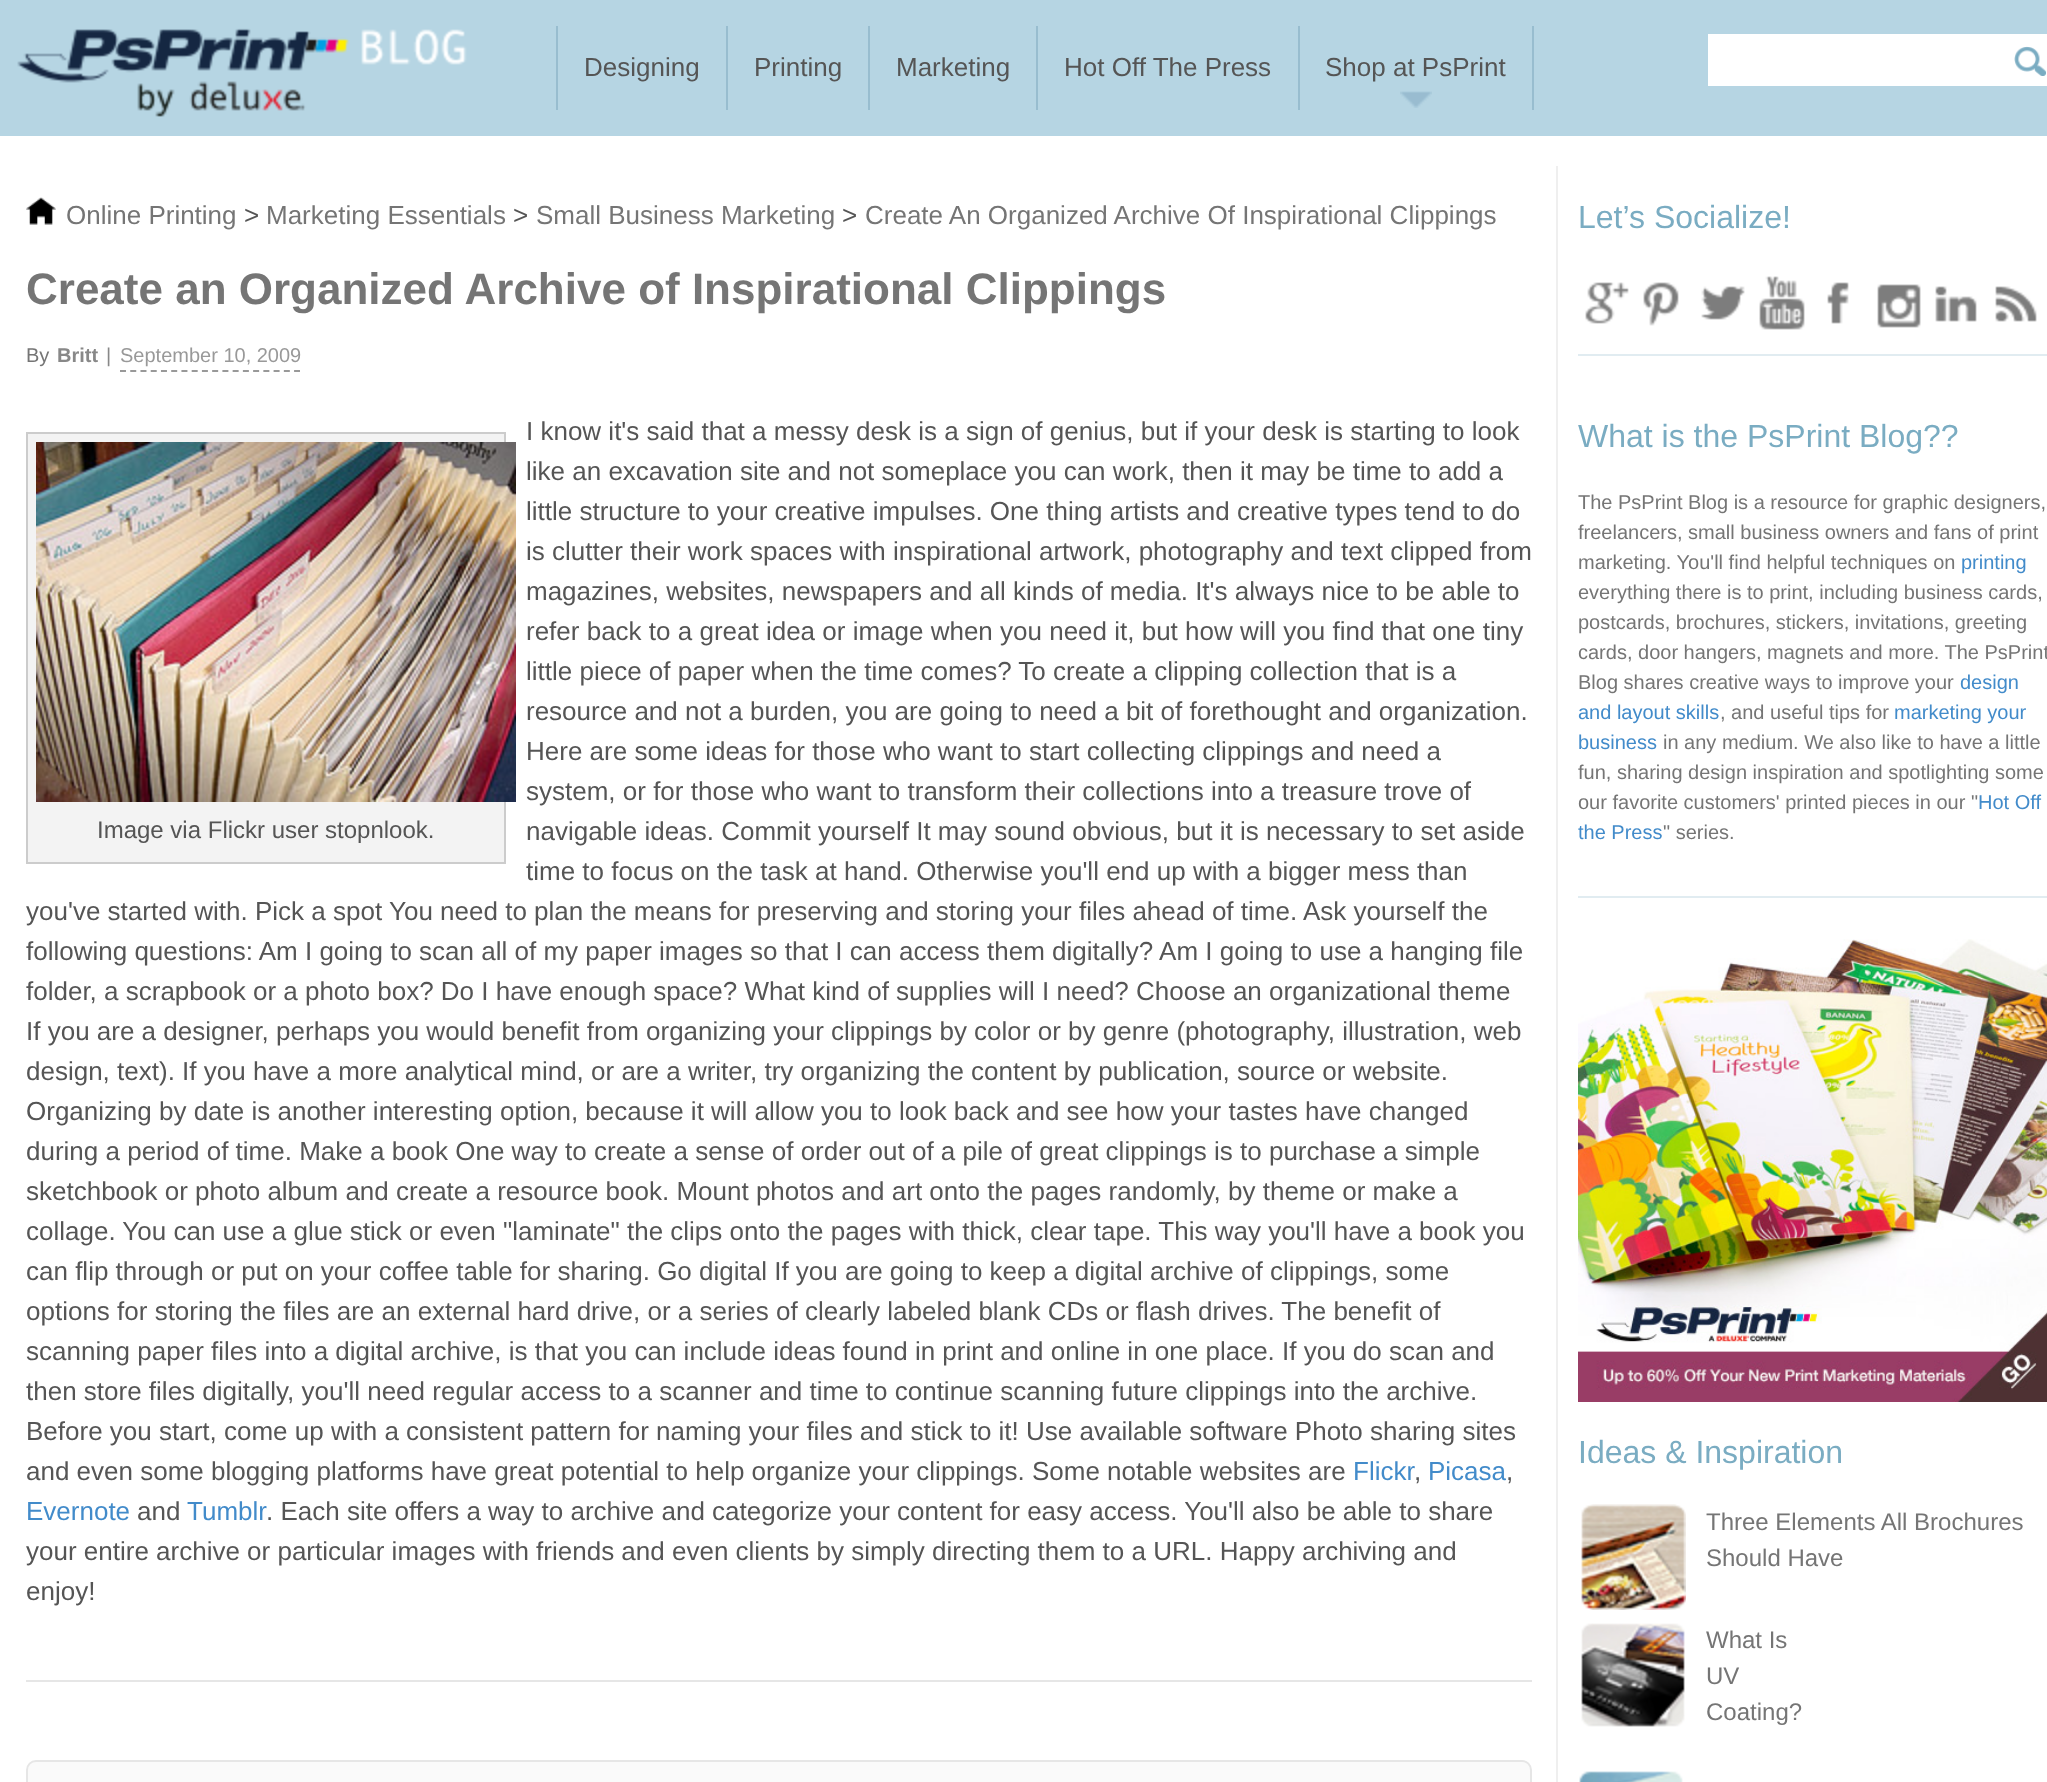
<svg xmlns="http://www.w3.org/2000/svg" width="2047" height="1782">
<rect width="100%" height="100%" fill="#b6d5e3"/>
<image x="17" y="28" width="450" height="89" href="media/1.png"/>
<rect x="556" y="26" width="2" height="84" fill="#98bdcf"/>
<text x="584" y="76" style="font-family:Liberation Sans;font-size:26px;fill:#555">Designing</text>
<rect x="726" y="26" width="2" height="84" fill="#98bdcf"/>
<text x="754" y="76" style="font-family:Liberation Sans;font-size:26px;fill:#555">Printing</text>
<rect x="868" y="26" width="2" height="84" fill="#98bdcf"/>
<text x="896" y="76" style="font-family:Liberation Sans;font-size:26px;fill:#555">Marketing</text>
<rect x="1036" y="26" width="2" height="84" fill="#98bdcf"/>
<text x="1064" y="76" style="font-family:Liberation Sans;font-size:26px;fill:#555">Hot Off The Press</text>
<image x="1400" y="91" width="32" height="17" href="media/2.png"/>
<rect x="1532" y="26" width="2" height="84" fill="#98bdcf"/>
<rect x="1298" y="26" width="2" height="84" fill="#98bdcf"/>
<text x="1325" y="76" style="font-family:Liberation Sans;font-size:26px;fill:#555">Shop at PsPrint</text>
<rect x="1708" y="34" width="339" height="52" fill="#fff"/>
<image x="2014" y="46" width="32" height="30" href="media/3.png"/>
<rect y="136" width="2047" height="1646" fill="#fff"/>
<image x="26" y="197" width="30" height="28" href="media/4.png"/>
<text x="66" y="224" style="font-family:Liberation Sans;font-size:26px;fill:#757575">Online Printing</text>
<text x="244" y="224" style="font-family:Liberation Sans;font-size:26px;fill:#555">&gt;</text>
<text x="266" y="224" style="font-family:Liberation Sans;font-size:26px;fill:#757575">Marketing Essentials</text>
<text x="513" y="224" style="font-family:Liberation Sans;font-size:26px;fill:#555">&gt;</text>
<text x="536" y="224" style="font-family:Liberation Sans;font-size:26px;fill:#757575">Small Business Marketing</text>
<text x="842" y="224" style="font-family:Liberation Sans;font-size:26px;fill:#555">&gt;</text>
<text x="865" y="224" style="font-family:Liberation Sans;font-size:26px;fill:#757575">Create An Organized Archive Of Inspirational Clippings</text>
<text x="26" y="304" style="font-family:Liberation Sans;font-size:44px;font-weight:bold;fill:#757575">Create an Organized Archive of Inspirational Clippings</text>
<text x="26" y="362" style="font-family:Liberation Sans;font-size:20px;fill:#757575">By</text>
<text x="57" y="362" style="font-family:Liberation Sans;font-size:20px;font-weight:bold;fill:#888">Britt</text>
<text x="106" y="362" style="font-family:Liberation Sans;font-size:20px;fill:#888">|</text>
<path d="M120 371h180" fill="none" stroke="#999" stroke-width="2" stroke-dasharray="6 4.24"/>
<text x="120" y="362" style="font-family:Liberation Sans;font-size:20px;fill:#999">September 10, 2009</text>
<text x="526" y="440" style="font-family:Liberation Sans;font-size:26px;fill:#555">I know it's said that a messy desk is a sign of genius, but if your desk is starting to look</text>
<text x="526" y="480" style="font-family:Liberation Sans;font-size:26px;fill:#555">like an excavation site and not someplace you can work, then it may be time to add a</text>
<text x="526" y="520" style="font-family:Liberation Sans;font-size:26px;fill:#555">little structure to your creative impulses. One thing artists and creative types tend to do</text>
<text x="526" y="560" style="font-family:Liberation Sans;font-size:26px;fill:#555">is clutter their work spaces with inspirational artwork, photography and text clipped from</text>
<text x="526" y="600" style="font-family:Liberation Sans;font-size:26px;fill:#555">magazines, websites, newspapers and all kinds of media. It's always nice to be able to</text>
<text x="526" y="640" style="font-family:Liberation Sans;font-size:26px;fill:#555">refer back to a great idea or image when you need it, but how will you find that one tiny</text>
<text x="526" y="680" style="font-family:Liberation Sans;font-size:26px;fill:#555">little piece of paper when the time comes? To create a clipping collection that is a</text>
<text x="526" y="720" style="font-family:Liberation Sans;font-size:26px;fill:#555">resource and not a burden, you are going to need a bit of forethought and organization.</text>
<text x="526" y="760" style="font-family:Liberation Sans;font-size:26px;fill:#555">Here are some ideas for those who want to start collecting clippings and need a</text>
<text x="526" y="800" style="font-family:Liberation Sans;font-size:26px;fill:#555">system, or for those who want to transform their collections into a treasure trove of</text>
<rect x="27" y="433" width="478" height="430" fill="#f3f3f3" stroke="#ccc" stroke-width="2"/>
<image x="36" y="442" width="480" height="360" href="media/5.png"/>
<text x="97" y="838" style="font-family:Liberation Sans;font-size:24px;fill:#555">Image via Flickr user stopnlook.</text>
<text x="526" y="840" style="font-family:Liberation Sans;font-size:26px;fill:#555">navigable ideas. Commit yourself It may sound obvious, but it is necessary to set aside</text>
<text x="526" y="880" style="font-family:Liberation Sans;font-size:26px;fill:#555">time to focus on the task at hand. Otherwise you'll end up with a bigger mess than</text>
<text x="26" y="920" style="font-family:Liberation Sans;font-size:26px;fill:#555">you've started with. Pick a spot</text>
<text x="389" y="920" style="font-family:Liberation Sans;font-size:26px;fill:#555">You need to plan the means for preserving and storing your files ahead of time. Ask yourself the</text>
<text x="26" y="960" style="font-family:Liberation Sans;font-size:26px;fill:#555">following questions: Am I going to scan all of my paper images so that I can access them digitally? Am I going to use a hanging file</text>
<text x="26" y="1000" style="font-family:Liberation Sans;font-size:26px;fill:#555">folder, a scrapbook or a photo box? Do I have enough space? What kind of supplies will I need? Choose an organizational theme</text>
<text x="26" y="1040" style="font-family:Liberation Sans;font-size:26px;fill:#555">If you are a designer, perhaps you would benefit from organizing your clippings by color or by genre (photography, illustration, web</text>
<text x="26" y="1080" style="font-family:Liberation Sans;font-size:26px;fill:#555">design, text). If you have a more analytical mind, or are a writer, try organizing the content by publication, source or website.</text>
<text x="26" y="1120" style="font-family:Liberation Sans;font-size:26px;fill:#555">Organizing by date is another interesting option, because it will allow you to look back and see how your tastes have changed</text>
<text x="26" y="1160" style="font-family:Liberation Sans;font-size:26px;fill:#555">during a period of time. Make a book One way to create a sense of order out of a pile of great clippings is to purchase a simple</text>
<text x="26" y="1200" style="font-family:Liberation Sans;font-size:26px;fill:#555">sketchbook or photo album and create a resource book. Mount photos and art onto the pages randomly, by theme or make a</text>
<text x="26" y="1240" style="font-family:Liberation Sans;font-size:26px;fill:#555">collage. You can use a glue stick or even "laminate" the clips onto the pages with thick, clear tape. This way you'll have a book you</text>
<text x="26" y="1280" style="font-family:Liberation Sans;font-size:26px;fill:#555">can flip through or put on your coffee table for sharing. Go digital If you are going to keep a digital archive of clippings, some</text>
<text x="26" y="1320" style="font-family:Liberation Sans;font-size:26px;fill:#555">options for storing the files are an external hard drive, or a series of clearly labeled blank CDs or flash drives. The benefit of</text>
<text x="26" y="1360" style="font-family:Liberation Sans;font-size:26px;fill:#555">scanning paper files into a digital archive, is that you can include ideas found in print and online in one place. If you do scan and</text>
<text x="26" y="1400" style="font-family:Liberation Sans;font-size:26px;fill:#555">then store files digitally, you'll need regular access to a scanner and time to continue scanning future clippings into the archive.</text>
<text x="26" y="1440" style="font-family:Liberation Sans;font-size:26px;fill:#555">Before you start, come up with a consistent pattern for naming your files and stick to it! Use available software Photo sharing sites</text>
<text x="26" y="1480" style="font-family:Liberation Sans;font-size:26px;fill:#555">and even some blogging platforms have great potential to help organize your clippings. Some notable websites are</text>
<text x="1353" y="1480" style="font-family:Liberation Sans;font-size:26px;fill:#428bca">Flickr</text>
<text x="1414" y="1480" style="font-family:Liberation Sans;font-size:26px;fill:#555">,</text>
<text x="1428" y="1480" style="font-family:Liberation Sans;font-size:26px;fill:#428bca">Picasa</text>
<text x="1506" y="1480" style="font-family:Liberation Sans;font-size:26px;fill:#555">,</text>
<text x="26" y="1520" style="font-family:Liberation Sans;font-size:26px;fill:#428bca">Evernote</text>
<text x="137" y="1520" style="font-family:Liberation Sans;font-size:26px;fill:#555">and</text>
<text x="187" y="1520" style="font-family:Liberation Sans;font-size:26px;fill:#428bca">Tumblr</text>
<text x="266" y="1520" style="font-family:Liberation Sans;font-size:26px;fill:#555">. Each site offers a way to archive and categorize your content for easy access. You'll also be able to share</text>
<text x="26" y="1560" style="font-family:Liberation Sans;font-size:26px;fill:#555">your entire archive or particular images with friends and even clients by simply directing them to a URL. Happy archiving and</text>
<text x="26" y="1600" style="font-family:Liberation Sans;font-size:26px;fill:#555">enjoy!</text>
<rect x="26" y="1680" width="1506" height="2" fill="#e6e6e6"/>
<rect x="27" y="1761" width="1504" height="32" rx="9" fill="#fafafa" stroke="#e6e6e6" stroke-width="2"/>
<rect x="1556" y="166" width="2" height="1616" fill="#efefef"/>
<text x="1578" y="228" style="font-family:Liberation Sans;font-size:32px;fill:#7aacc2">Let’s Socialize!</text>
<rect x="1578" y="354" width="469" height="2" fill="#e1ecf1"/>
<image x="1585" y="282" width="44" height="42" href="media/6.png"/>
<image x="1643" y="282" width="36" height="44" href="media/7.png"/>
<image x="1701" y="286" width="44" height="34" href="media/8.png"/>
<image x="1759" y="276" width="46" height="54" href="media/9.png"/>
<image x="1827" y="282" width="22" height="42" href="media/10.png"/>
<image x="1877" y="284" width="44" height="44" href="media/11.png"/>
<image x="1935" y="286" width="42" height="36" href="media/12.png"/>
<image x="1995" y="286" width="42" height="36" href="media/13.png"/>
<rect x="1578" y="896" width="469" height="2" fill="#e1ecf1"/>
<text x="1578" y="447" style="font-family:Liberation Sans;font-size:32px;fill:#7aacc2">What is the PsPrint Blog??</text>
<text x="1578" y="509" style="font-family:Liberation Sans;font-size:20px;fill:#757575">The PsPrint Blog is a resource for graphic designers,</text>
<text x="1578" y="539" style="font-family:Liberation Sans;font-size:20px;fill:#757575">freelancers, small business owners and fans of print</text>
<text x="1578" y="569" style="font-family:Liberation Sans;font-size:20px;fill:#757575">marketing. You'll find helpful techniques on</text>
<text x="1961" y="569" style="font-family:Liberation Sans;font-size:20px;fill:#428bca">printing</text>
<text x="1578" y="599" style="font-family:Liberation Sans;font-size:20px;fill:#757575">everything there is to print, including business cards,</text>
<text x="1578" y="629" style="font-family:Liberation Sans;font-size:20px;fill:#757575">postcards, brochures, stickers, invitations, greeting</text>
<text x="1578" y="659" style="font-family:Liberation Sans;font-size:20px;fill:#757575">cards, door hangers, magnets and more. The PsPrint</text>
<text x="1578" y="689" style="font-family:Liberation Sans;font-size:20px;fill:#757575">Blog shares creative ways to improve your</text>
<text x="1960" y="689" style="font-family:Liberation Sans;font-size:20px;fill:#428bca">design</text>
<text x="1578" y="719" style="font-family:Liberation Sans;font-size:20px;fill:#428bca">and layout skills</text>
<text x="1720" y="719" style="font-family:Liberation Sans;font-size:20px;fill:#757575">, and useful tips for</text>
<text x="1894" y="719" style="font-family:Liberation Sans;font-size:20px;fill:#428bca">marketing your</text>
<text x="1578" y="749" style="font-family:Liberation Sans;font-size:20px;fill:#428bca">business</text>
<text x="1663" y="749" style="font-family:Liberation Sans;font-size:20px;fill:#757575">in any medium. We also like to have a little</text>
<text x="1578" y="779" style="font-family:Liberation Sans;font-size:20px;fill:#757575">fun, sharing design inspiration and spotlighting some</text>
<text x="1578" y="809" style="font-family:Liberation Sans;font-size:20px;fill:#757575">our favorite customers' printed pieces in our "</text>
<text x="1978" y="809" style="font-family:Liberation Sans;font-size:20px;fill:#428bca">Hot Off</text>
<text x="1578" y="839" style="font-family:Liberation Sans;font-size:20px;fill:#428bca">the Press</text>
<text x="1663" y="839" style="font-family:Liberation Sans;font-size:20px;fill:#757575">" series.</text>
<image x="1578" y="939" width="469" height="463" href="media/14.png"/>
<text x="1578" y="1463" style="font-family:Liberation Sans;font-size:32px;fill:#7aacc2">Ideas &amp; Inspiration</text>
<image x="1581" y="1504" width="105" height="106" href="media/15.png"/>
<text x="1706" y="1530" style="font-family:Liberation Sans;font-size:24px;fill:#757575">Three Elements All Brochures</text>
<text x="1706" y="1566" style="font-family:Liberation Sans;font-size:24px;fill:#757575">Should Have</text>
<image x="1581" y="1623" width="104" height="104" href="media/16.png"/>
<text x="1706" y="1648" style="font-family:Liberation Sans;font-size:24px;fill:#757575">What Is</text>
<text x="1706" y="1684" style="font-family:Liberation Sans;font-size:24px;fill:#757575">UV</text>
<text x="1706" y="1720" style="font-family:Liberation Sans;font-size:24px;fill:#757575">Coating?</text>
<image x="1579" y="1771" width="104" height="11" href="media/17.png"/>
</svg>
